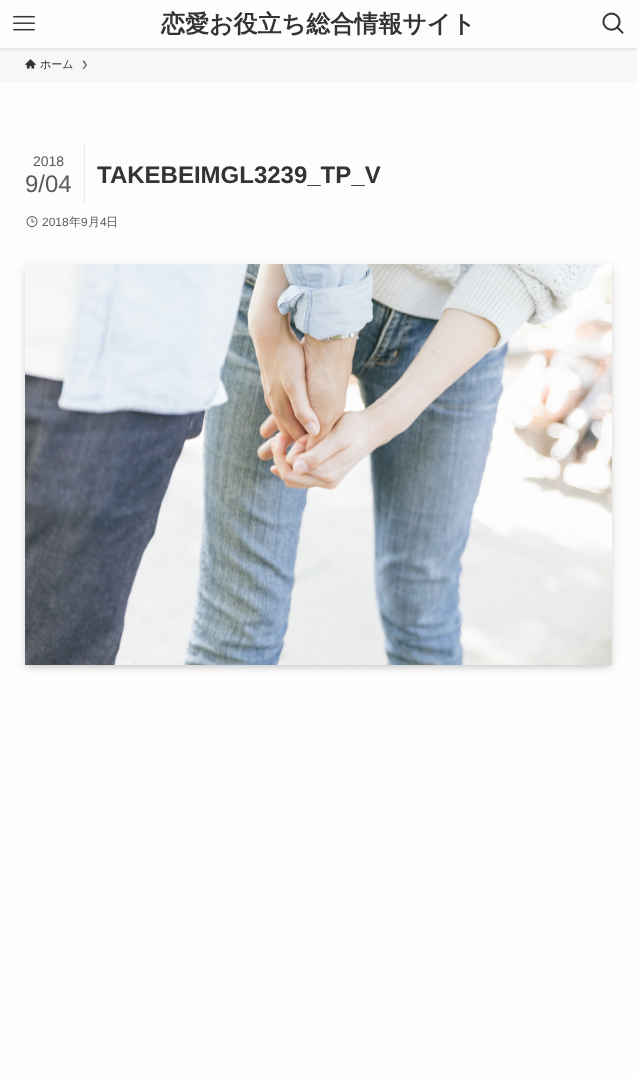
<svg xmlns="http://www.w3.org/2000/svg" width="637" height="1077">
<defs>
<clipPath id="clip1"><rect x="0" y="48" width="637" height="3"/></clipPath>
</defs>
<rect width="100%" height="100%" fill="#fdfdfd"/>
<rect y="48" width="637" height="34" fill="#f7f7f7"/>
<g clip-path="url(#clip1)">
<rect y="1" width="637" height="48" fill="#0000001f" filter="blur(2px)"/>
</g>
<image x="13" y="15" width="22" height="16" href="media/1.png"/>
<text x="161" y="32" style="font-family:WenQuanYi Zen Hei;font-size:24px;font-weight:bold;fill:#333">恋愛お役立ち総合情報サイト</text>
<image x="602" y="12" width="22" height="22" href="media/2.png"/>
<image x="25" y="59" width="11" height="10" href="media/3.png"/>
<text x="40" y="68" style="font-family:WenQuanYi Zen Hei;font-size:11px;font-weight:500;fill:#333">ホーム</text>
<path d="M84 60.5l-1.5 .5l3 4l-3 4h1.5l3-4z" fill="#5a5a5a"/>
<rect x="84" y="146" width="1" height="58" fill="#e8e8e8"/>
<text x="33" y="166" style="font-family:Liberation Sans;font-size:14px;fill:#5b5b5b">2018</text>
<text x="25" y="192" style="font-family:Liberation Sans;font-size:24px;fill:#5b5b5b">9/04</text>
<text x="97" y="183" style="font-family:Liberation Sans;font-size:24px;font-weight:bold;fill:#333">TAKEBEIMGL3239_TP_V</text>
<image x="26" y="216" width="12" height="12" href="media/4.png"/>
<text x="42" y="226" style="font-family:Liberation Sans;font-size:12px;fill:#5b5b5b">2018</text>
<text x="69" y="226" style="font-family:WenQuanYi Zen Hei;font-size:12px;font-weight:500;fill:#5b5b5b">年</text>
<text x="81" y="226" style="font-family:Liberation Sans;font-size:12px;fill:#5b5b5b">9</text>
<text x="88" y="226" style="font-family:WenQuanYi Zen Hei;font-size:12px;font-weight:500;fill:#5b5b5b">月</text>
<text x="100" y="226" style="font-family:Liberation Sans;font-size:12px;fill:#5b5b5b">4</text>
<text x="106" y="226" style="font-family:WenQuanYi Zen Hei;font-size:12px;font-weight:500;fill:#5b5b5b">日</text>
<rect x="29" y="272" width="579" height="393" fill="#00000033" filter="blur(4px)"/>
<rect x="25" y="266" width="587" height="401" fill="#0000001a" filter="blur(4px)"/>
<image x="25" y="264" width="587" height="401" href="media/5.png"/>
</svg>
